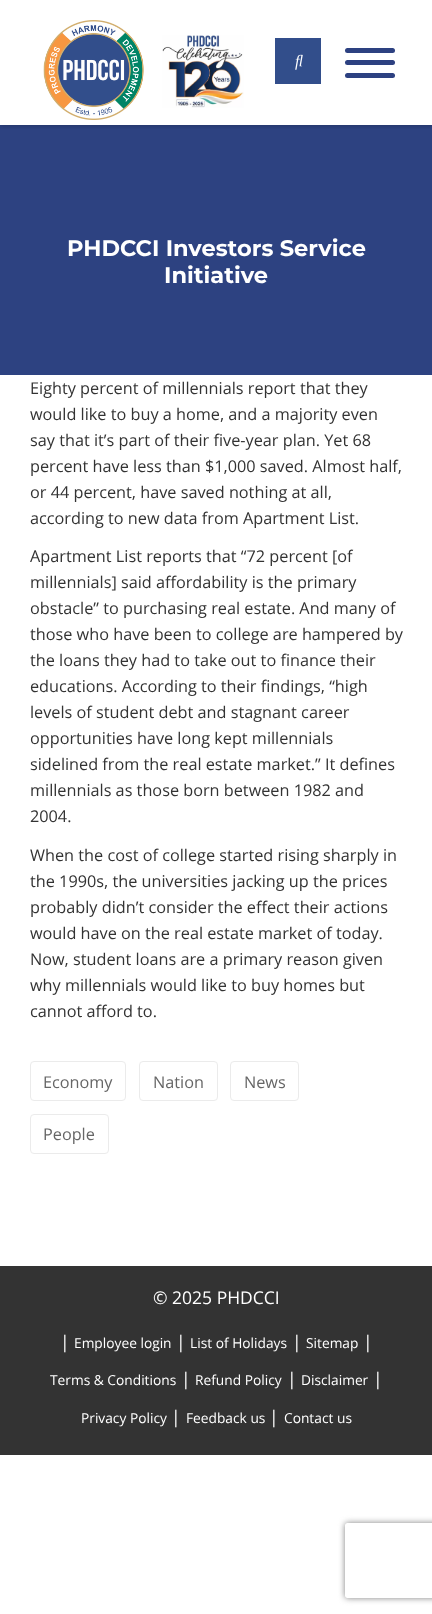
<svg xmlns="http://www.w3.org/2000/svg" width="432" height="1614">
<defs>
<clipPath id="clip1"><rect x="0" y="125" width="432" height="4"/></clipPath>
<clipPath id="clip2"><path d="M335 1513h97v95h-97zm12.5 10h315c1.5 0 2.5 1 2.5 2.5v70c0 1.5-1 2.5-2.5 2.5h-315c-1.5 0-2.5-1-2.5-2.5v-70c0-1.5 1-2.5 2.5-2.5z" clip-rule="evenodd"/></clipPath>
</defs>
<rect width="100%" height="100%" fill="#fff"/>
<rect y="125" width="432" height="250" fill="#2d4281"/>
<g clip-path="url(#clip1)">
<rect y="1" width="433" height="125" fill="#00000033" filter="blur(2px)"/>
</g>
<image x="43" y="20" width="101" height="100" href="media/1.png"/>
<image x="162" y="35" width="82" height="73" href="media/2.png"/>
<rect x="345" y="48" width="50" height="5" rx="2.5" fill="#2d4181"/>
<rect x="345" y="60" width="50" height="5" rx="2.5" fill="#2d4181"/>
<rect x="345" y="73" width="50" height="5" rx="2.5" fill="#2d4181"/>
<rect x="275" y="38" width="46" height="46" fill="#324e8b"/>
<image x="295" y="54" width="8" height="16" href="media/3.png"/>
<text x="67" y="256" style="font-family:Montserrat;font-size:22.5px;font-weight:100;fill:#fff">PHDCCI Investors Service</text>
<text x="164" y="283" style="font-family:Montserrat;font-size:22.5px;font-weight:100;fill:#fff">Initiative</text>
<text x="30" y="394" style="font-family:Open Sans;font-size:16.25px;fill:#333">Eighty percent of millennials report that they</text>
<text x="30" y="420" style="font-family:Open Sans;font-size:16.25px;fill:#333">would like to buy a home, and a majority even</text>
<text x="30" y="446" style="font-family:Open Sans;font-size:16.25px;fill:#333">say that it’s part of their five-year plan. Yet 68</text>
<text x="30" y="472" style="font-family:Open Sans;font-size:16.25px;fill:#333">percent have less than $1,000 saved. Almost half,</text>
<text x="30" y="498" style="font-family:Open Sans;font-size:16.25px;fill:#333">or 44 percent, have saved nothing at all,</text>
<text x="30" y="524" style="font-family:Open Sans;font-size:16.25px;fill:#333">according to new data from Apartment List.</text>
<text x="30" y="562" style="font-family:Open Sans;font-size:16.25px;fill:#333">Apartment List reports that “72 percent [of</text>
<text x="30" y="588" style="font-family:Open Sans;font-size:16.25px;fill:#333">millennials] said affordability is the primary</text>
<text x="30" y="614" style="font-family:Open Sans;font-size:16.25px;fill:#333">obstacle” to purchasing real estate. And many of</text>
<text x="30" y="640" style="font-family:Open Sans;font-size:16.25px;fill:#333">those who have been to college are hampered by</text>
<text x="30" y="666" style="font-family:Open Sans;font-size:16.25px;fill:#333">the loans they had to take out to finance their</text>
<text x="30" y="692" style="font-family:Open Sans;font-size:16.25px;fill:#333">educations. According to their findings, “high</text>
<text x="30" y="718" style="font-family:Open Sans;font-size:16.25px;fill:#333">levels of student debt and stagnant career</text>
<text x="30" y="744" style="font-family:Open Sans;font-size:16.25px;fill:#333">opportunities have long kept millennials</text>
<text x="30" y="770" style="font-family:Open Sans;font-size:16.25px;fill:#333">sidelined from the real estate market.” It defines</text>
<text x="30" y="796" style="font-family:Open Sans;font-size:16.25px;fill:#333">millennials as those born between 1982 and</text>
<text x="30" y="822" style="font-family:Open Sans;font-size:16.25px;fill:#333">2004.</text>
<text x="30" y="861" style="font-family:Open Sans;font-size:16.25px;fill:#333">When the cost of college started rising sharply in</text>
<text x="30" y="887" style="font-family:Open Sans;font-size:16.25px;fill:#333">the 1990s, the universities jacking up the prices</text>
<text x="30" y="913" style="font-family:Open Sans;font-size:16.25px;fill:#333">probably didn’t consider the effect their actions</text>
<text x="30" y="939" style="font-family:Open Sans;font-size:16.25px;fill:#333">would have on the real estate market of today.</text>
<text x="30" y="965" style="font-family:Open Sans;font-size:16.25px;fill:#333">Now, student loans are a primary reason given</text>
<text x="30" y="991" style="font-family:Open Sans;font-size:16.25px;fill:#333">why millennials would like to buy homes but</text>
<text x="30" y="1017" style="font-family:Open Sans;font-size:16.25px;fill:#333">cannot afford to.</text>
<rect x="30.5" y="1061.5" width="95" height="39" rx="3.5" fill="none" stroke="#ebebeb"/>
<text x="43" y="1088" style="font-family:Open Sans;font-size:16.25px;fill:#666">Economy</text>
<rect x="139.5" y="1061.5" width="78" height="39" rx="3.5" fill="none" stroke="#ebebeb"/>
<text x="153" y="1088" style="font-family:Open Sans;font-size:16.25px;fill:#666">Nation</text>
<rect x="230.5" y="1061.5" width="68" height="39" rx="3.5" fill="none" stroke="#ebebeb"/>
<text x="244" y="1088" style="font-family:Open Sans;font-size:16.25px;fill:#666">News</text>
<rect x="30.5" y="1114.5" width="78" height="39" rx="3.5" fill="none" stroke="#ebebeb"/>
<text x="43" y="1140" style="font-family:Open Sans;font-size:16.25px;fill:#666">People</text>
<rect y="1266" width="432" height="189" fill="#333"/>
<text x="153" y="1304" style="font-family:Open Sans;font-size:17.5px;fill:#fff">© 2025 PHDCCI</text>
<text x="60" y="1348" style="font-family:Open Sans;font-size:17.5px;fill:#fff">|</text>
<text x="74" y="1348" style="font-family:Open Sans;font-size:13.75px;fill:#fff">Employee login</text>
<text x="176" y="1348" style="font-family:Open Sans;font-size:17.5px;fill:#fff">|</text>
<text x="190" y="1348" style="font-family:Open Sans;font-size:13.75px;fill:#fff">List of Holidays</text>
<text x="292" y="1348" style="font-family:Open Sans;font-size:17.5px;fill:#fff">|</text>
<text x="306" y="1348" style="font-family:Open Sans;font-size:13.75px;fill:#fff">Sitemap</text>
<text x="363" y="1348" style="font-family:Open Sans;font-size:17.5px;fill:#fff">|</text>
<text x="50" y="1385" style="font-family:Open Sans;font-size:13.75px;fill:#fff">Terms &amp; Conditions</text>
<text x="181" y="1385" style="font-family:Open Sans;font-size:17.5px;fill:#fff">|</text>
<text x="195" y="1385" style="font-family:Open Sans;font-size:13.75px;fill:#fff">Refund Policy</text>
<text x="287" y="1385" style="font-family:Open Sans;font-size:17.5px;fill:#fff">|</text>
<text x="301" y="1385" style="font-family:Open Sans;font-size:13.75px;fill:#fff">Disclaimer</text>
<text x="373" y="1385" style="font-family:Open Sans;font-size:17.5px;fill:#fff">|</text>
<text x="81" y="1423" style="font-family:Open Sans;font-size:13.75px;fill:#fff">Privacy Policy</text>
<text x="171" y="1423" style="font-family:Open Sans;font-size:17.5px;fill:#fff">|</text>
<text x="186" y="1423" style="font-family:Open Sans;font-size:13.75px;fill:#fff">Feedback us</text>
<text x="269" y="1423" style="font-family:Open Sans;font-size:17.5px;fill:#fff">|</text>
<text x="284" y="1423" style="font-family:Open Sans;font-size:13.75px;fill:#fff">Contact us</text>
<g clip-path="url(#clip2)">
<rect x="345" y="1523" width="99" height="75" rx="2.5" fill="#808080" filter="blur(3px)"/>
</g>
</svg>
